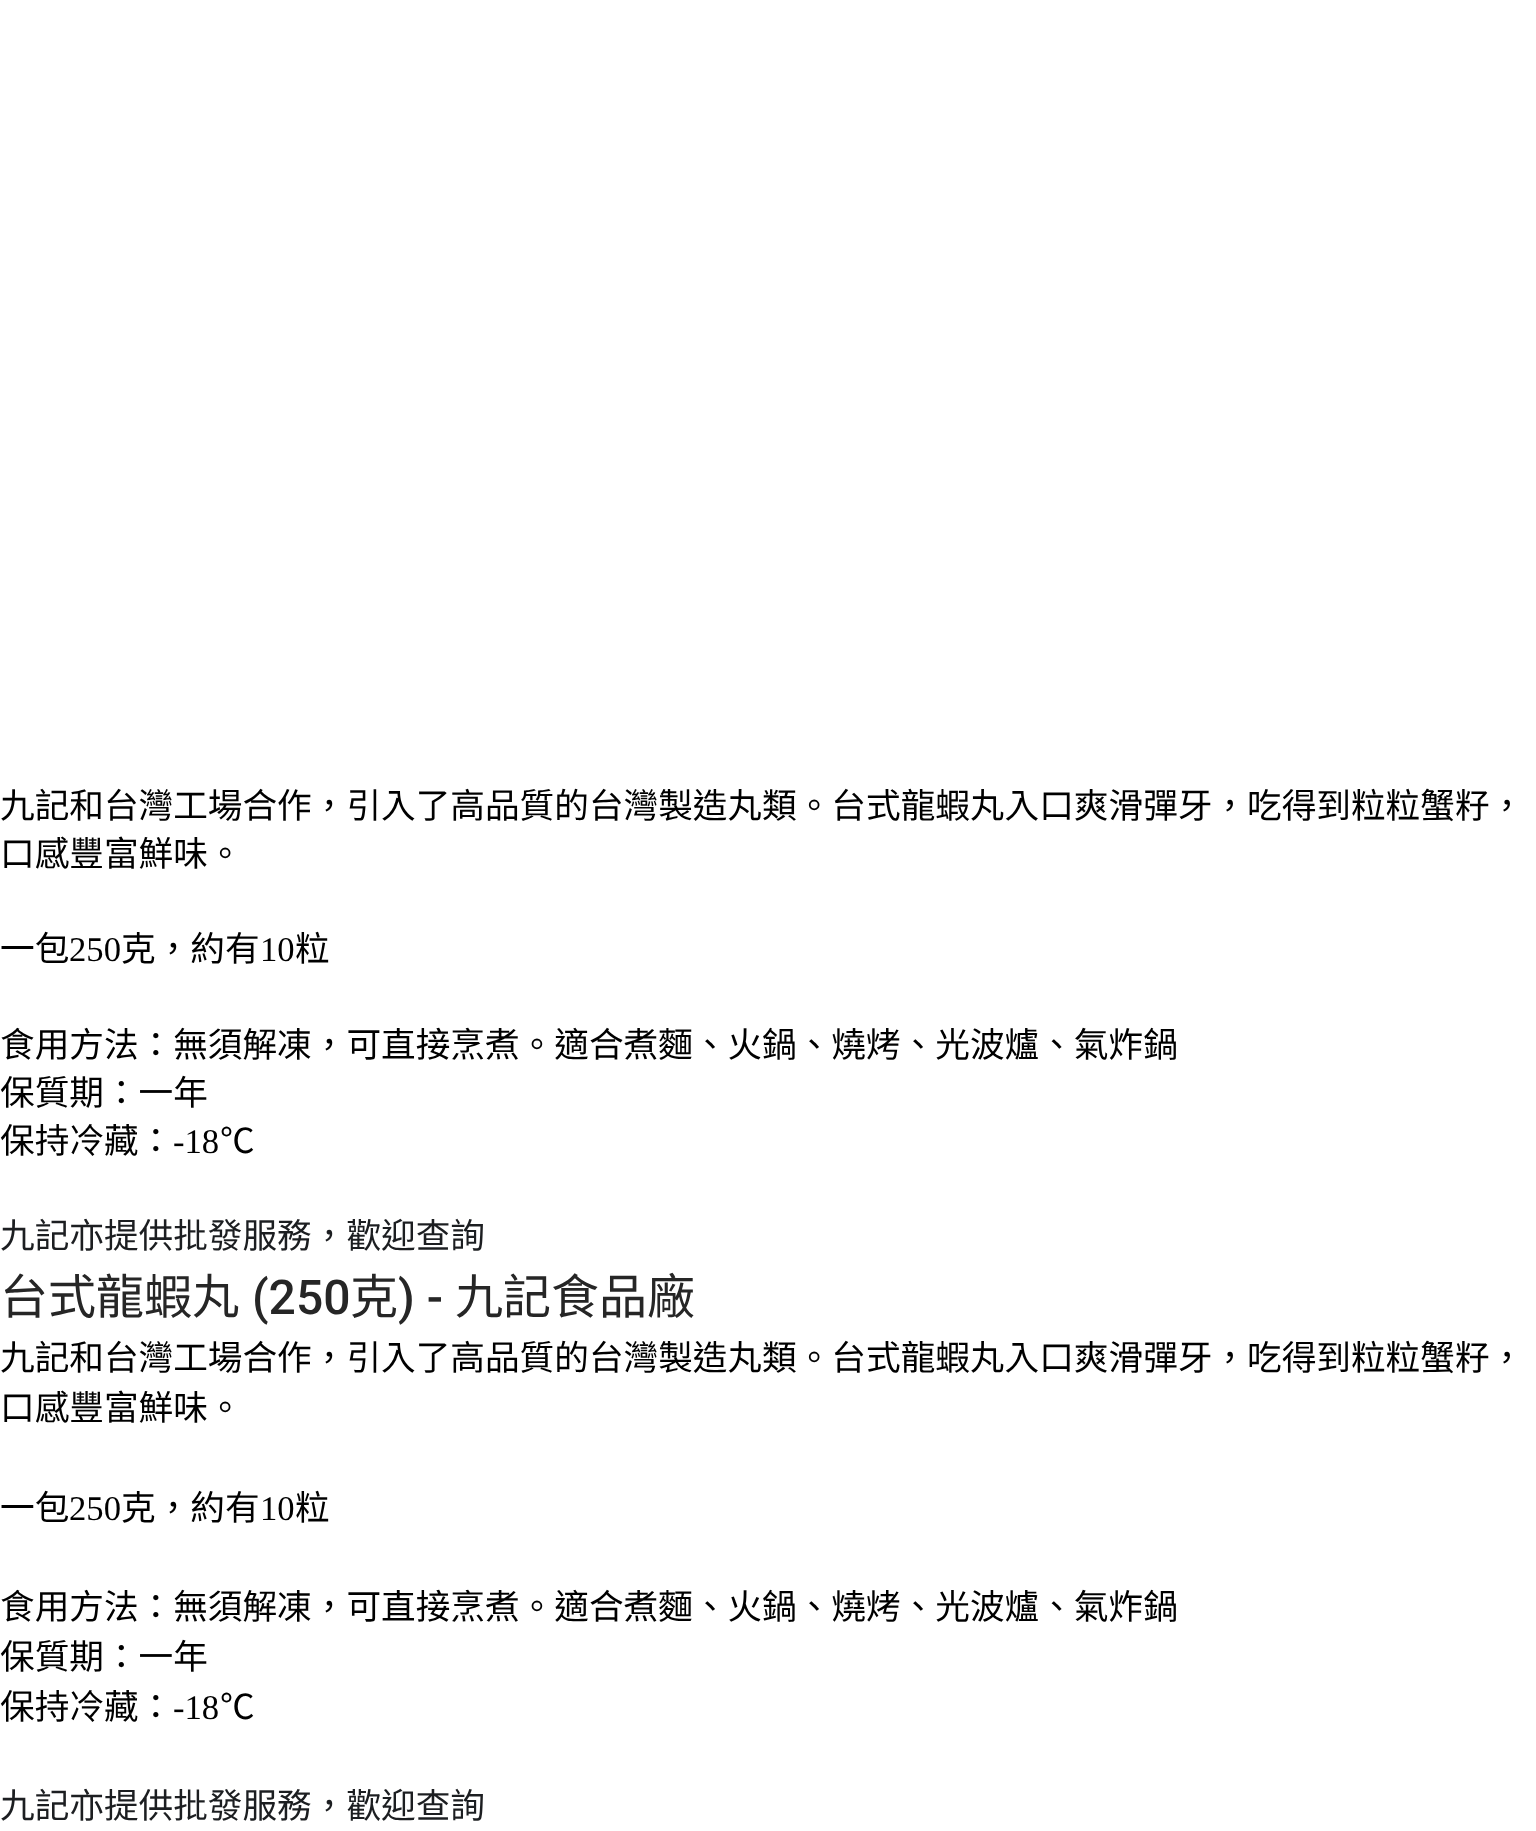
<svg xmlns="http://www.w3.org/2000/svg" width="1536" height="1831">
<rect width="100%" height="100%" fill="#fff"/>
<text x="0" y="818" style="font-family:Noto Sans CJK HK;font-size:34.65px;fill:#000">九記和台灣工場合作，引入了高品質的台灣製造丸類。台式龍蝦丸入口爽滑彈牙，吃得到粒粒蟹籽，</text>
<text x="0" y="866" style="font-family:Noto Sans CJK HK;font-size:34.65px;fill:#000">口感豐富鮮味。</text>
<text x="0" y="961" style="font-family:Noto Sans CJK HK;font-size:34.65px;fill:#000">一包</text>
<text x="69" y="961" style="font-family:Liberation Serif;font-size:34.65px;fill:#000">250</text>
<text x="121" y="961" style="font-family:Noto Sans CJK HK;font-size:34.65px;fill:#000">克，約有</text>
<text x="260" y="961" style="font-family:Liberation Serif;font-size:34.65px;fill:#000">10</text>
<text x="295" y="961" style="font-family:Noto Sans CJK HK;font-size:34.65px;fill:#000">粒</text>
<text x="0" y="1057" style="font-family:Noto Sans CJK HK;font-size:34.65px;fill:#000">食用方法：無須解凍，可直接烹煮。適合煮麵、火鍋、燒烤、光波爐、氣炸鍋</text>
<text x="0" y="1105" style="font-family:Noto Sans CJK HK;font-size:34.65px;fill:#000">保質期：一年</text>
<text x="0" y="1153" style="font-family:Noto Sans CJK HK;font-size:34.65px;fill:#000">保持冷藏：</text>
<text x="173" y="1153" style="font-family:Liberation Serif;font-size:34.65px;fill:#000">-18</text>
<text x="220" y="1153" style="font-family:Noto Sans CJK HK;font-size:34.65px;fill:#000">℃</text>
<text x="0" y="1248" style="font-family:Noto Sans CJK HK;font-size:34.65px;fill:#1c1e21">九記亦提供批發服務，歡迎查詢</text>
<text x="0" y="1314" style="font-family:Noto Sans CJK HK;font-size:48px;fill:#262626">台式龍蝦丸</text>
<text x="252" y="1314" style="font-family:Roboto;font-size:48px;font-weight:500;fill:#262626">(250</text>
<text x="350" y="1314" style="font-family:Noto Sans CJK HK;font-size:48px;fill:#262626">克</text>
<text x="398" y="1314" style="font-family:Roboto;font-size:48px;font-weight:500;fill:#262626">) -</text>
<text x="455" y="1314" style="font-family:Noto Sans CJK HK;font-size:48px;fill:#262626">九記食品廠</text>
<text x="0" y="1370" style="font-family:Noto Sans CJK HK;font-size:34.65px;fill:#000">九記和台灣工場合作，引入了高品質的台灣製造丸類。台式龍蝦丸入口爽滑彈牙，吃得到粒粒蟹籽，</text>
<text x="0" y="1420" style="font-family:Noto Sans CJK HK;font-size:34.65px;fill:#000">口感豐富鮮味。</text>
<text x="0" y="1520" style="font-family:Noto Sans CJK HK;font-size:34.65px;fill:#000">一包</text>
<text x="69" y="1520" style="font-family:Liberation Serif;font-size:34.65px;fill:#000">250</text>
<text x="121" y="1520" style="font-family:Noto Sans CJK HK;font-size:34.65px;fill:#000">克，約有</text>
<text x="260" y="1520" style="font-family:Liberation Serif;font-size:34.65px;fill:#000">10</text>
<text x="295" y="1520" style="font-family:Noto Sans CJK HK;font-size:34.65px;fill:#000">粒</text>
<text x="0" y="1619" style="font-family:Noto Sans CJK HK;font-size:34.65px;fill:#000">食用方法：無須解凍，可直接烹煮。適合煮麵、火鍋、燒烤、光波爐、氣炸鍋</text>
<text x="0" y="1669" style="font-family:Noto Sans CJK HK;font-size:34.65px;fill:#000">保質期：一年</text>
<text x="0" y="1719" style="font-family:Noto Sans CJK HK;font-size:34.65px;fill:#000">保持冷藏：</text>
<text x="173" y="1719" style="font-family:Liberation Serif;font-size:34.65px;fill:#000">-18</text>
<text x="220" y="1719" style="font-family:Noto Sans CJK HK;font-size:34.65px;fill:#000">℃</text>
<text x="0" y="1818" style="font-family:Noto Sans CJK HK;font-size:34.65px;fill:#1c1e21">九記亦提供批發服務，歡迎查詢</text>
</svg>
